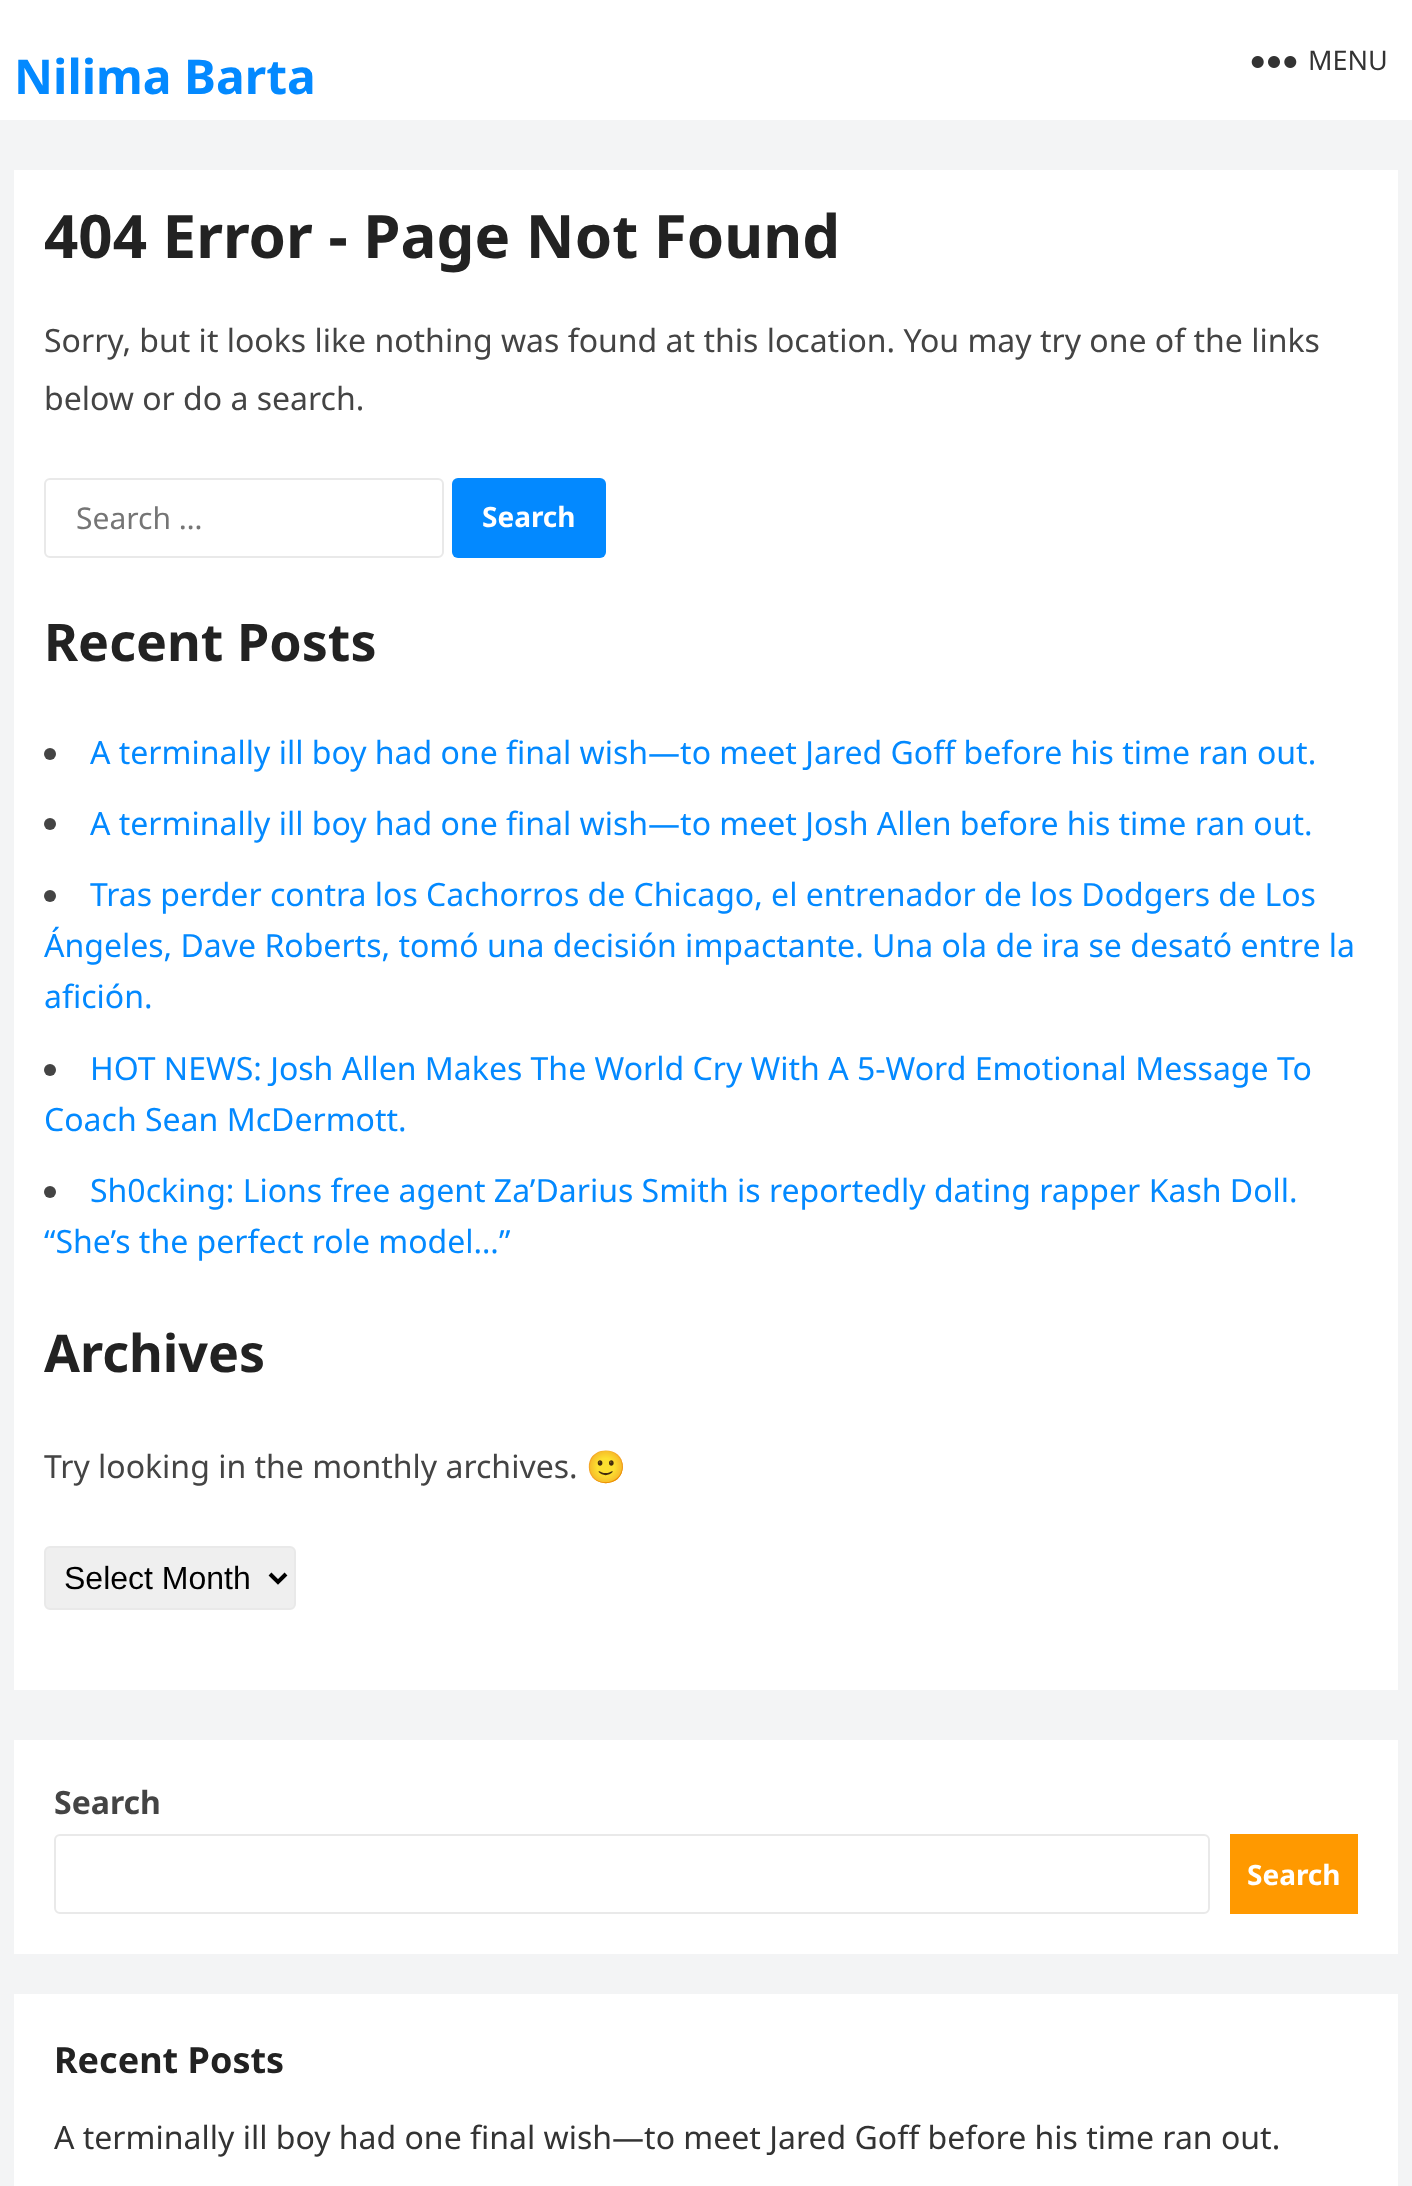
<svg xmlns="http://www.w3.org/2000/svg" width="1412" height="2186">
<rect width="100%" height="100%" fill="#f3f4f5"/>
<rect width="1412" height="120" fill="#fff"/>
<text x="14" y="94" style="font-family:Noto Sans;font-size:48px;font-weight:bold;fill:#0389ff">Nilima Barta</text>
<image x="1251" y="56" width="46" height="12" href="media/1.png"/>
<text x="1308" y="70" style="font-family:Noto Sans;font-size:27px;fill:#333">MENU</text>
<rect x="14" y="170" width="1384" height="1520" fill="#fff"/>
<text x="44" y="258" style="font-family:Noto Sans;font-size:60px;font-weight:bold;fill:#222">404 Error - Page Not Found</text>
<text x="44" y="352" style="font-family:Noto Sans;font-size:32px;fill:#444">Sorry, but it looks like nothing was found at this location. You may try one of the links</text>
<text x="44" y="410" style="font-family:Noto Sans;font-size:32px;fill:#444">below or do a search.</text>
<rect x="45" y="479" width="398" height="78" rx="5" fill="none" stroke="#e9e9e9" stroke-width="2"/>
<text x="76" y="529" style="font-family:Noto Sans;font-size:30px;fill:#757575">Search …</text>
<rect x="452" y="478" width="154" height="80" rx="6" fill="#0389ff"/>
<text x="482" y="527" style="font-family:Noto Sans;font-size:28px;font-weight:bold;fill:#fff">Search</text>
<text x="44" y="661" style="font-family:Noto Sans;font-size:52px;font-weight:bold;fill:#222">Recent Posts</text>
<circle cx="50" cy="754" r="6" fill="#444"/>
<text x="90" y="764" style="font-family:Noto Sans;font-size:32px;fill:#0389ff">A terminally ill boy had one final wish—to meet Jared Goff before his time ran out.</text>
<circle cx="50" cy="824" r="6" fill="#444"/>
<text x="90" y="835" style="font-family:Noto Sans;font-size:32px;fill:#0389ff">A terminally ill boy had one final wish—to meet Josh Allen before his time ran out.</text>
<circle cx="50" cy="896" r="6" fill="#444"/>
<text x="90" y="906" style="font-family:Noto Sans;font-size:32px;fill:#0389ff">Tras perder contra los Cachorros de Chicago, el entrenador de los Dodgers de Los</text>
<text x="44" y="957" style="font-family:Noto Sans;font-size:32px;fill:#0389ff">Ángeles, Dave Roberts, tomó una decisión impactante. Una ola de ira se desató entre la</text>
<text x="44" y="1008" style="font-family:Noto Sans;font-size:32px;fill:#0389ff">afición.</text>
<circle cx="50" cy="1070" r="6" fill="#444"/>
<text x="90" y="1080" style="font-family:Noto Sans;font-size:32px;fill:#0389ff">HOT NEWS: Josh Allen Makes The World Cry With A 5-Word Emotional Message To</text>
<text x="44" y="1131" style="font-family:Noto Sans;font-size:32px;fill:#0389ff">Coach Sean McDermott.</text>
<circle cx="50" cy="1192" r="6" fill="#444"/>
<text x="90" y="1202" style="font-family:Noto Sans;font-size:32px;fill:#0389ff">Sh0cking: Lions free agent Za’Darius Smith is reportedly dating rapper Kash Doll.</text>
<text x="44" y="1253" style="font-family:Noto Sans;font-size:32px;fill:#0389ff">“She’s the perfect role model…”</text>
<text x="44" y="1372" style="font-family:Noto Sans;font-size:52px;font-weight:bold;fill:#222">Archives</text>
<text x="44" y="1478" style="font-family:Noto Sans;font-size:32px;fill:#444">Try looking in the monthly archives.</text>
<text x="586" y="1478" style="font-family:Noto Color Emoji;font-size:32px;fill:#444">🙂</text>
<rect x="45" y="1547" width="250" height="62" rx="5" fill="#efefef" stroke="#e9e9e9" stroke-width="2"/>
<path d="M270 1574l8 8l8-8" fill="none" stroke="#000" stroke-width="4"/>
<text x="64" y="1589" style="font-family:Liberation Sans;font-size:32px;fill:#000">Select Month</text>
<rect x="14" y="1740" width="1384" height="214" fill="#fff"/>
<text x="54" y="1814" style="font-family:Noto Sans;font-size:32px;font-weight:bold;fill:#444">Search</text>
<rect x="55" y="1835" width="1154" height="78" rx="5" fill="none" stroke="#e9e9e9" stroke-width="2"/>
<rect x="1230" y="1834" width="128" height="80" fill="#f90"/>
<text x="1247" y="1885" style="font-family:Noto Sans;font-size:28px;font-weight:bold;fill:#fff">Search</text>
<rect x="14" y="1994" width="1384" height="192" fill="#fff"/>
<text x="54" y="2073" style="font-family:Noto Sans;font-size:36px;font-weight:bold;fill:#222">Recent Posts</text>
<text x="54" y="2149" style="font-family:Noto Sans;font-size:32px;fill:#333">A terminally ill boy had one final wish—to meet Jared Goff before his time ran out.</text>
</svg>
